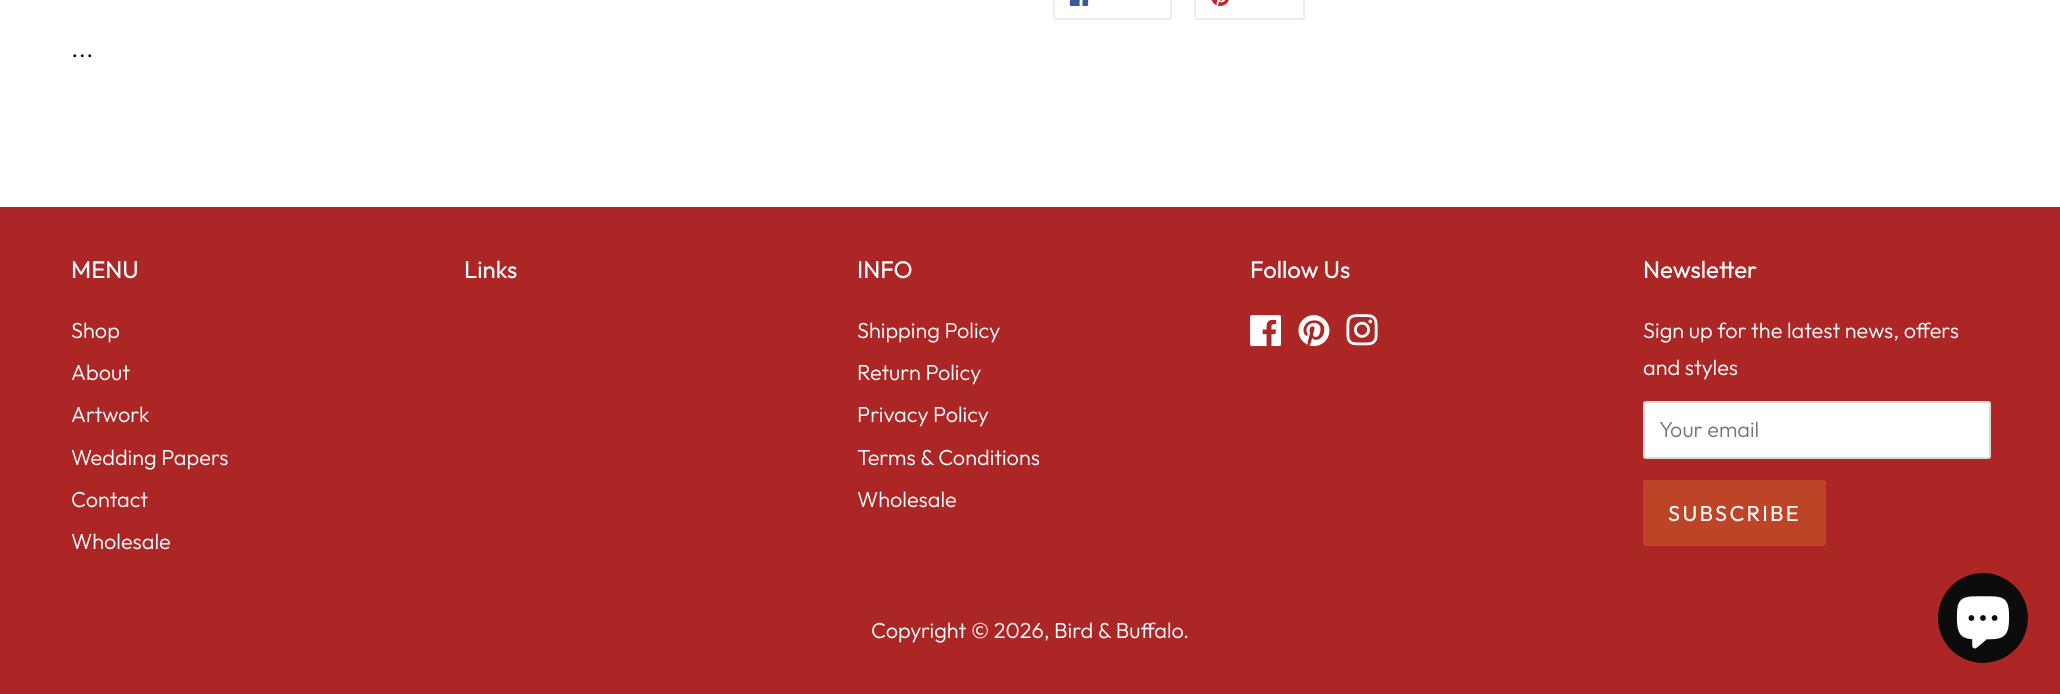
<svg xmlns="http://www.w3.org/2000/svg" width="2060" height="694">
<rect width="100%" height="100%" fill="#fff"/>
<rect x="1054" y="-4" width="117" height="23" rx="2" fill="none" stroke="#ececec" stroke-width="2"/>
<image x="1069" y="0" width="20" height="6" href="media/1.png"/>
<rect x="1195" y="-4" width="109" height="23" rx="2" fill="none" stroke="#ececec" stroke-width="2"/>
<image x="1211" y="0" width="18" height="6" href="media/2.png"/>
<text x="71" y="57" style="font-family:Outfit;font-size:26px;font-weight:300;fill:#000">...</text>
<rect y="207" width="2060" height="487" fill="#ac2626"/>
<text x="71" y="278" style="font-family:Outfit;font-size:24px;fill:#fff">MENU</text>
<text x="71" y="338" style="font-family:Outfit;font-size:21.7px;font-weight:300;fill:#fff">Shop</text>
<text x="71" y="380" style="font-family:Outfit;font-size:21.7px;font-weight:300;fill:#fff">About</text>
<text x="71" y="422" style="font-family:Outfit;font-size:21.7px;font-weight:300;fill:#fff">Artwork</text>
<text x="71" y="465" style="font-family:Outfit;font-size:21.7px;font-weight:300;fill:#fff">Wedding Papers</text>
<text x="71" y="507" style="font-family:Outfit;font-size:21.7px;font-weight:300;fill:#fff">Contact</text>
<text x="71" y="549" style="font-family:Outfit;font-size:21.7px;font-weight:300;fill:#fff">Wholesale</text>
<text x="464" y="278" style="font-family:Outfit;font-size:24px;fill:#fff">Links</text>
<text x="857" y="278" style="font-family:Outfit;font-size:24px;fill:#fff">INFO</text>
<text x="857" y="338" style="font-family:Outfit;font-size:21.7px;font-weight:300;fill:#fff">Shipping Policy</text>
<text x="857" y="380" style="font-family:Outfit;font-size:21.7px;font-weight:300;fill:#fff">Return Policy</text>
<text x="857" y="422" style="font-family:Outfit;font-size:21.7px;font-weight:300;fill:#fff">Privacy Policy</text>
<text x="857" y="465" style="font-family:Outfit;font-size:21.7px;font-weight:300;fill:#fff">Terms &amp; Conditions</text>
<text x="857" y="507" style="font-family:Outfit;font-size:21.7px;font-weight:300;fill:#fff">Wholesale</text>
<text x="1250" y="278" style="font-family:Outfit;font-size:24px;fill:#fff">Follow Us</text>
<image x="1250" y="315" width="31" height="32" href="media/3.png"/>
<image x="1298" y="315" width="32" height="32" href="media/4.png"/>
<image x="1346" y="314" width="32" height="32" href="media/5.png"/>
<text x="1643" y="278" style="font-family:Outfit;font-size:24px;fill:#fff">Newsletter</text>
<text x="1643" y="338" style="font-family:Outfit;font-size:21.7px;font-weight:300;fill:#fff">Sign up for the latest news, offers</text>
<text x="1643" y="375" style="font-family:Outfit;font-size:21.7px;font-weight:300;fill:#fff">and styles</text>
<rect x="1643" y="401" width="348" height="58" rx="3" fill="#fff"/>
<rect x="1644" y="402" width="346" height="56" rx="2" fill="none" stroke="#00000026" stroke-width="2"/>
<text x="1659" y="437" style="font-family:Outfit;font-size:21.7px;font-weight:300;fill:#757575">Your email</text>
<rect x="1643" y="480" width="183" height="66" rx="3" fill="#bd4427"/>
<text x="1668" y="521" style="font-family:Outfit;font-size:21.7px;letter-spacing:2.25px;fill:#fff">SUBSCRIBE</text>
<text x="871" y="638" style="font-family:Outfit;font-size:21.7px;font-weight:300;fill:#fff">Copyright © 2026,</text>
<text x="1054" y="638" style="font-family:Outfit;font-size:21.7px;font-weight:300;fill:#fff">Bird &amp; Buffalo</text>
<text x="1183" y="638" style="font-family:Outfit;font-size:21.7px;font-weight:300;fill:#fff">.</text>
<circle cx="1983" cy="618" r="45" fill="#0d0c0c"/>
<image x="1956" y="596" width="54" height="53" href="media/6.png"/>
</svg>
